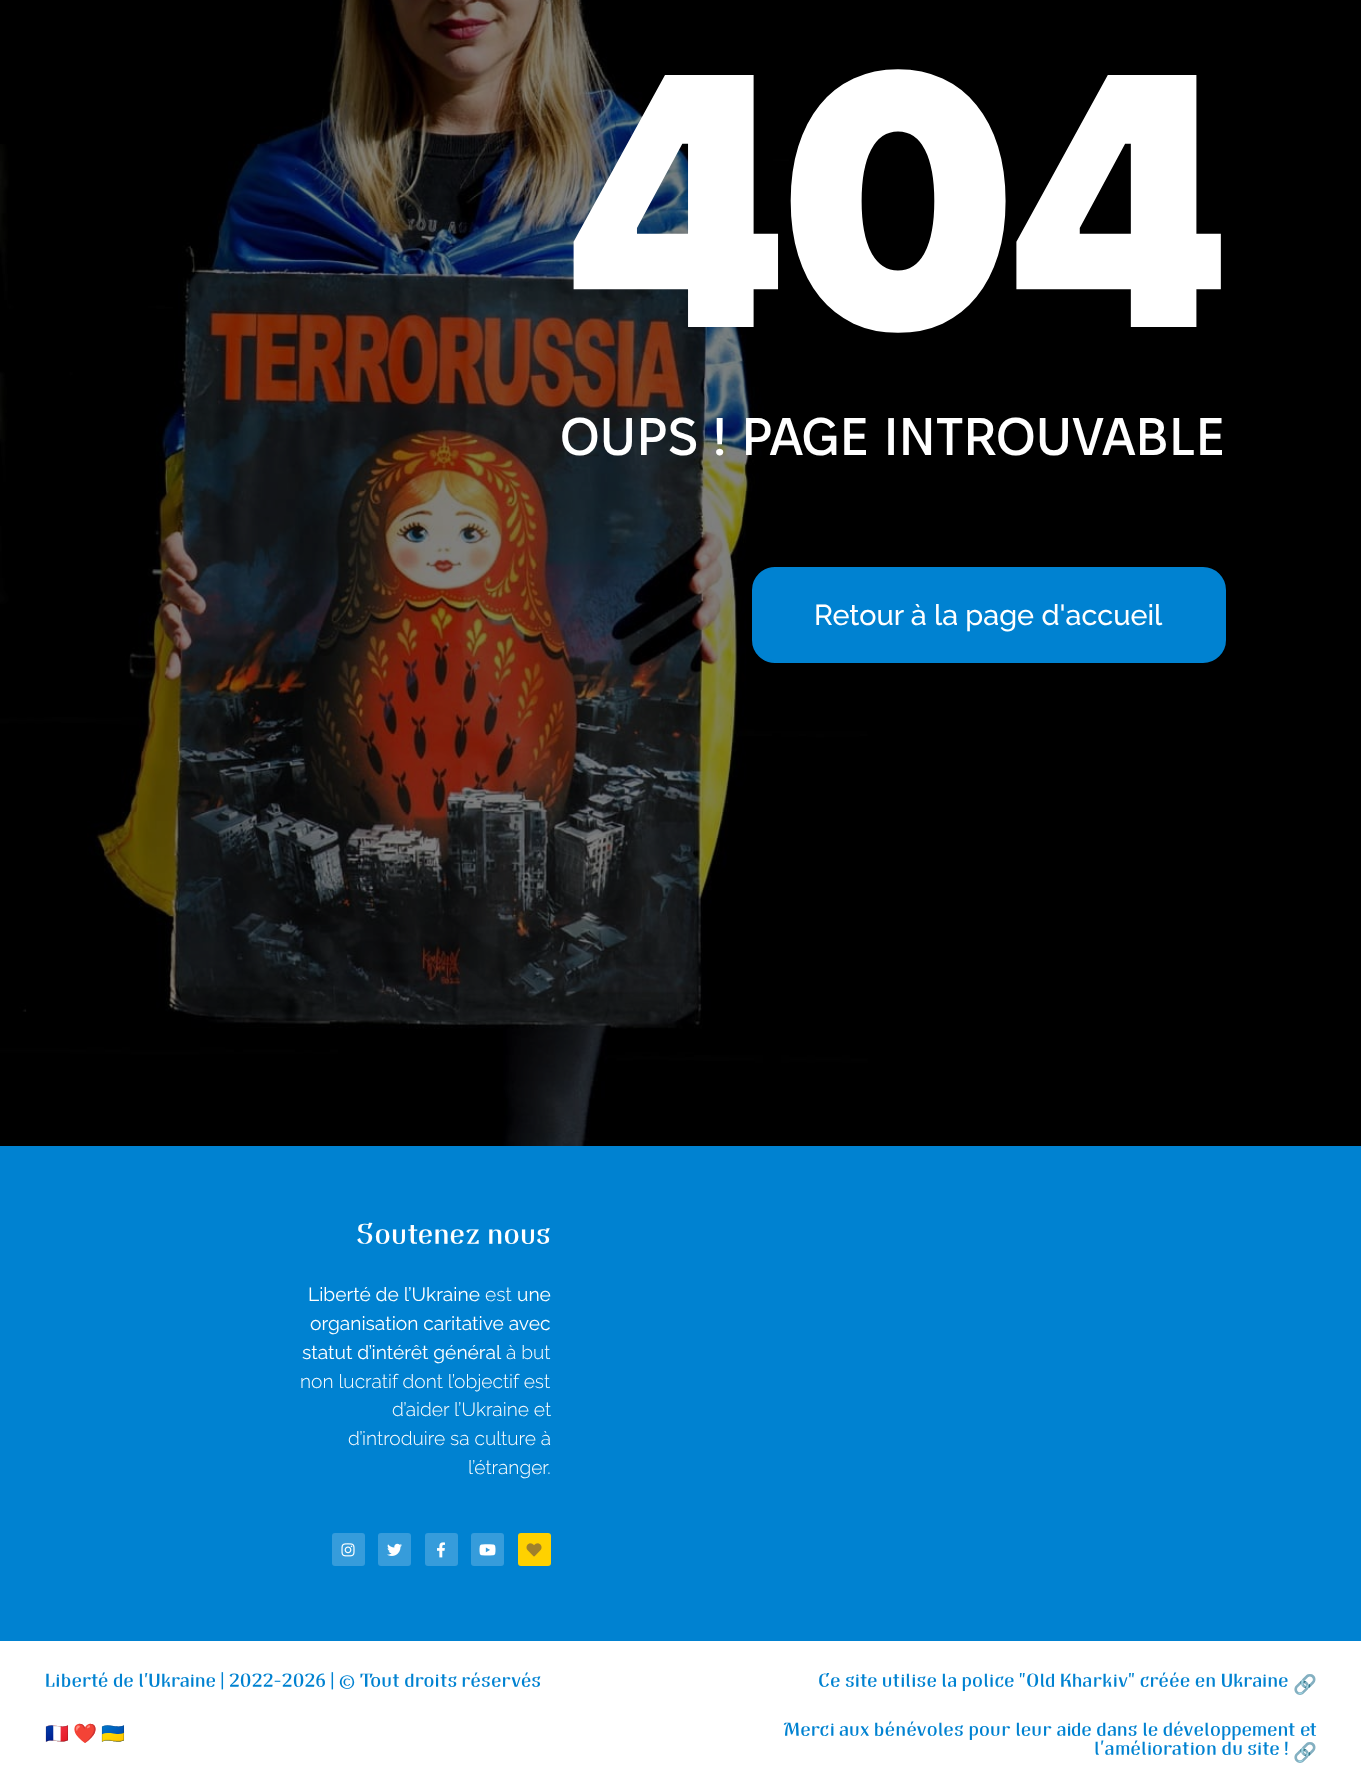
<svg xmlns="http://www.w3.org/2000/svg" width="1361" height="1789">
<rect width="100%" height="100%" fill="#fff"/>
<image x="0" y="0" width="1361" height="1146" href="media/1.png"/>
<text x="570" y="327" style="font-family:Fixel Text;font-size:360px;font-weight:900;fill:#fff">404</text>
<text x="560" y="455" style="font-family:Fixel Text;font-size:52.75px;font-weight:500;fill:#fff">OUPS ! PAGE INTROUVABLE</text>
<rect x="753.5" y="568.5" width="471" height="93" rx="21.5" fill="#0082d1" stroke="#0082d1" stroke-width="3"/>
<text x="814" y="625" style="font-family:Raleway;font-size:28.75px;font-weight:500;fill:#fff">Retour à la page d'accueil</text>
<rect y="1146" width="1361" height="495" fill="#0082d1"/>
<text x="356" y="1250" style="font-family:'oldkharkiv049';font-size:28.75px;fill:#fff">Soutenez nous</text>
<text x="308" y="1301" style="font-family:Raleway;font-size:19.2px;fill:#fff">Liberté de l’Ukraine</text>
<text x="485" y="1301" style="font-family:Raleway;font-size:19.2px;font-weight:300;fill:#fff">est</text>
<text x="517" y="1301" style="font-family:Raleway;font-size:19.2px;fill:#fff">une</text>
<text x="310" y="1330" style="font-family:Raleway;font-size:19.2px;fill:#fff">organisation caritative avec</text>
<text x="302" y="1359" style="font-family:Raleway;font-size:19.2px;fill:#fff">statut d’intérêt général</text>
<text x="506" y="1359" style="font-family:Raleway;font-size:19.2px;font-weight:300;fill:#fff">à but</text>
<text x="300" y="1388" style="font-family:Raleway;font-size:19.2px;font-weight:300;fill:#fff">non lucratif dont l’objectif est</text>
<text x="392" y="1416" style="font-family:Raleway;font-size:19.2px;font-weight:300;fill:#fff">d’aider l’Ukraine et</text>
<text x="348" y="1445" style="font-family:Raleway;font-size:19.2px;font-weight:300;fill:#fff">d’introduire sa culture à</text>
<text x="468" y="1474" style="font-family:Raleway;font-size:19.2px;font-weight:300;fill:#fff">l’étranger.</text>
<rect x="332" y="1533" width="33" height="33" rx="3" fill="#369cdb"/>
<image x="341" y="1543" width="14" height="14" href="media/2.png"/>
<rect x="378" y="1533" width="33" height="33" rx="3" fill="#369cdb"/>
<image x="387" y="1543" width="15" height="13" href="media/3.png"/>
<rect x="425" y="1533" width="33" height="33" rx="3" fill="#369cdb"/>
<image x="437" y="1542" width="8" height="16" href="media/4.png"/>
<rect x="471" y="1533" width="33" height="33" rx="3" fill="#369cdb"/>
<image x="479" y="1544" width="17" height="12" href="media/5.png"/>
<rect x="518" y="1533" width="33" height="33" rx="3" fill="#ffd100"/>
<image x="526" y="1543" width="16" height="14" href="media/6.png"/>
<text x="45" y="1691" style="font-family:'oldkharkiv049';font-size:19.2px;fill:#0082d1">Liberté de l'Ukraine | 2022-2026 | © Tout droits réservés</text>
<text x="45" y="1740" style="font-family:Noto Color Emoji;font-size:19.2px;fill:#0082d1">🇫🇷</text>
<text x="73" y="1740" style="font-family:Noto Color Emoji;font-size:19.2px;fill:#0082d1">❤️</text>
<text x="101" y="1740" style="font-family:Noto Color Emoji;font-size:19.2px;fill:#0082d1">🇺🇦</text>
<text x="818" y="1691" style="font-family:'oldkharkiv049';font-size:19.2px;fill:#0082d1">Ce site utilise la police "Old Kharkiv" créée en Ukraine</text>
<text x="1293" y="1691" style="font-family:Noto Color Emoji;font-size:19.2px;fill:#0082d1">🔗</text>
<text x="783" y="1740" style="font-family:'oldkharkiv049';font-size:19.2px;fill:#0082d1">Merci aux bénévoles pour leur aide dans le développement et</text>
<text x="1094" y="1759" style="font-family:'oldkharkiv049';font-size:19.2px;fill:#0082d1">l’amélioration du site !</text>
<text x="1293" y="1759" style="font-family:Noto Color Emoji;font-size:19.2px;fill:#0082d1">🔗</text>
</svg>
